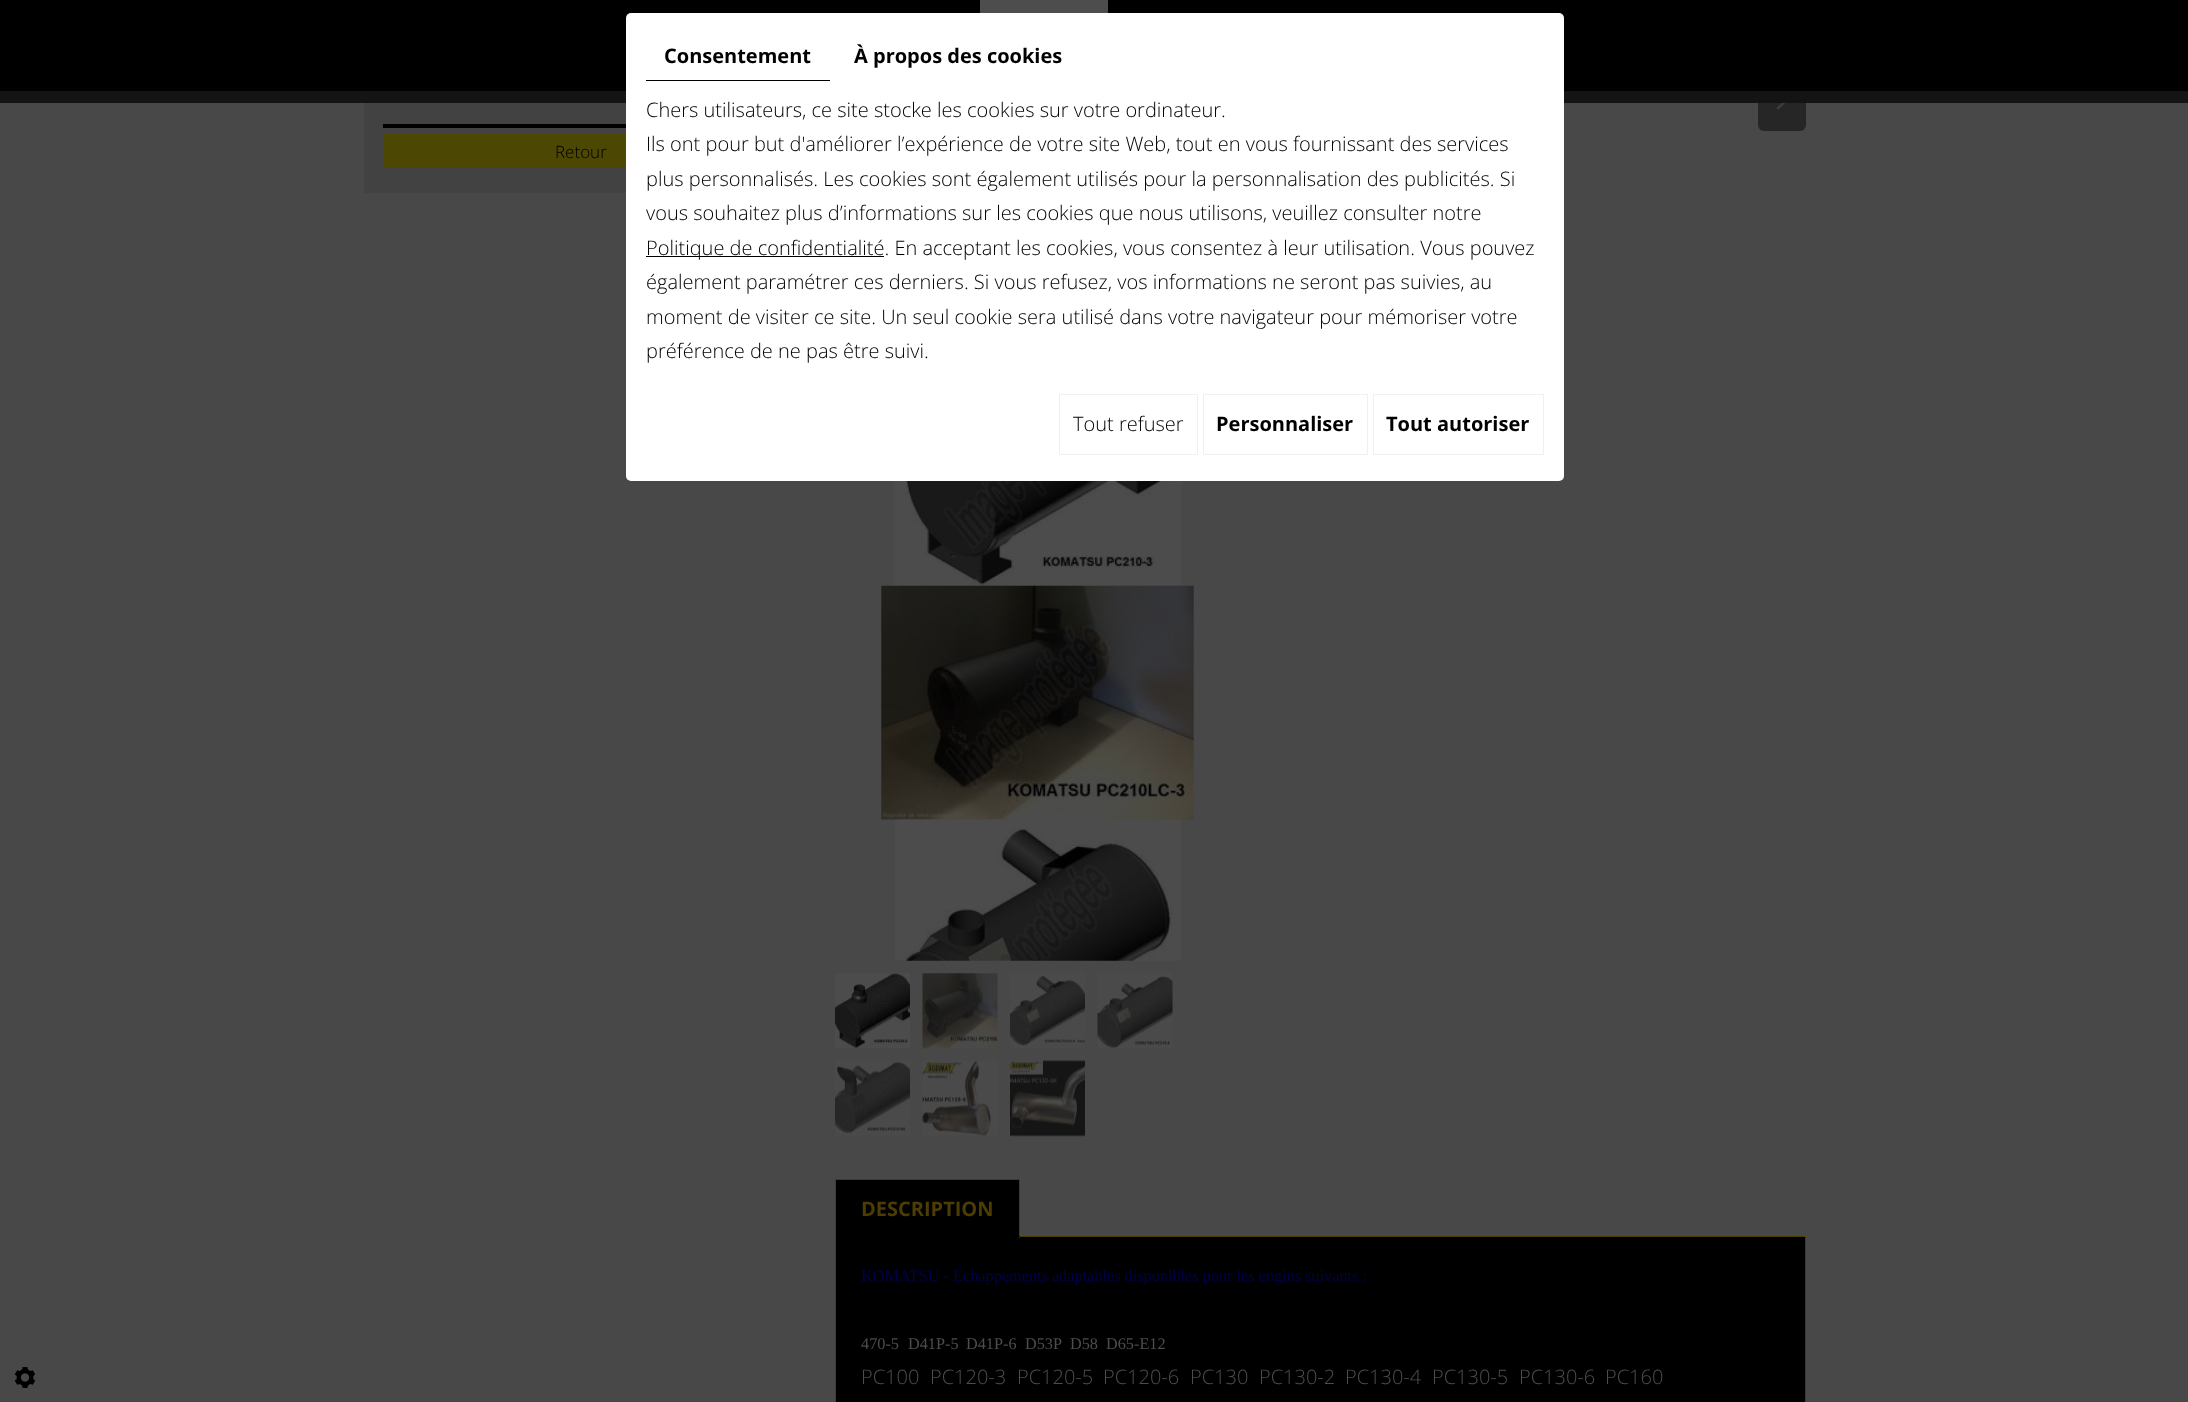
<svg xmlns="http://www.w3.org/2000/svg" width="2188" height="1402">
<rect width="100%" height="100%" fill="#484848"/>
<rect x="1758" y="69" width="48" height="62" rx="6" fill="#262626"/>
<rect width="2188" height="91" fill="#000"/>
<rect y="91" width="2188" height="12" fill="#141414"/>
<rect x="980" width="128" height="13" fill="#4d4d4d"/>
<rect x="626" y="13" width="938" height="468" rx="5" fill="#fff"/>
<rect x="646" y="80" width="184" height="1" fill="#000"/>
<text x="664" y="63" style="font-family:Open Sans;font-size:20px;font-weight:bold;fill:#000">Consentement</text>
<text x="854" y="63" style="font-family:Open Sans;font-size:20px;font-weight:bold;fill:#000">À propos des cookies</text>
<text x="646" y="117" style="font-family:Open Sans;font-size:20px;font-weight:300;fill:#000">Chers utilisateurs, ce site stocke les cookies sur votre ordinateur.</text>
<text x="646" y="151" style="font-family:Open Sans;font-size:20px;font-weight:300;fill:#000">Ils ont pour but d'améliorer l’expérience de votre site Web, tout en vous fournissant des services</text>
<text x="646" y="186" style="font-family:Open Sans;font-size:20px;font-weight:300;fill:#000">plus personnalisés. Les cookies sont également utilisés pour la personnalisation des publicités. Si</text>
<text x="646" y="220" style="font-family:Open Sans;font-size:20px;font-weight:300;fill:#000">vous souhaitez plus d’informations sur les cookies que nous utilisons, veuillez consulter notre</text>
<rect x="646" y="256" width="238" height="1" fill="#000"/>
<text x="646" y="255" style="font-family:Open Sans;font-size:20px;font-weight:300;fill:#000">Politique de confidentialité. En acceptant les cookies, vous consentez à leur utilisation. Vous pouvez</text>
<text x="646" y="289" style="font-family:Open Sans;font-size:20px;font-weight:300;fill:#000">également paramétrer ces derniers. Si vous refusez, vos informations ne seront pas suivies, au</text>
<text x="646" y="324" style="font-family:Open Sans;font-size:20px;font-weight:300;fill:#000">moment de visiter ce site. Un seul cookie sera utilisé dans votre navigateur pour mémoriser votre</text>
<text x="646" y="358" style="font-family:Open Sans;font-size:20px;font-weight:300;fill:#000">préférence de ne pas être suivi.</text>
<rect x="1059.5" y="394.5" width="138" height="60" fill="none" stroke="#f0f0f0"/>
<text x="1073" y="431" style="font-family:Open Sans;font-size:20px;font-weight:300;fill:#000">Tout refuser</text>
<rect x="1203.5" y="394.5" width="164" height="60" fill="none" stroke="#f0f0f0"/>
<text x="1216" y="431" style="font-family:Open Sans;font-size:20px;font-weight:bold;fill:#000">Personnaliser</text>
<rect x="1373.5" y="394.5" width="170" height="60" fill="none" stroke="#f0f0f0"/>
<text x="1386" y="431" style="font-family:Open Sans;font-size:20px;font-weight:bold;fill:#000">Tout autoriser</text>
<image x="14" y="1367" width="22" height="21" href="media/1.png"/>
<rect x="364" y="103" width="262" height="90" fill="#424242"/>
<rect x="383" y="124" width="243" height="4" fill="#000"/>
<rect x="383" y="134" width="243" height="34" fill="#4d4704"/>
<text x="555" y="158" style="font-family:Open Sans;font-size:17px;font-weight:300;fill:#000">Retour</text>
<image x="1776" y="103" width="9" height="7" href="media/2.png"/>
<image x="893" y="481" width="289" height="105" href="media/3.png"/>
<image x="881" y="585" width="313" height="235" href="media/4.png"/>
<image x="895" y="819" width="287" height="142" href="media/5.png"/>
<image x="835" y="973" width="75" height="76" href="media/6.png"/>
<image x="922" y="973" width="76" height="76" href="media/7.png"/>
<image x="1010" y="973" width="75" height="75" href="media/8.png"/>
<image x="1097" y="973" width="76" height="76" href="media/9.png"/>
<image x="835" y="1060" width="75" height="76" href="media/10.png"/>
<image x="922" y="1060" width="76" height="76" href="media/11.png"/>
<image x="1010" y="1060" width="75" height="77" href="media/12.png"/>
<rect x="835.5" y="1236.5" width="970" height="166" fill="#000" stroke="#4d3d00"/>
<rect x="836" y="1180" width="183" height="57" fill="#000"/>
<rect x="835" y="1179" width="185" height="1" fill="#4d3d00"/>
<rect x="1019" y="1179" width="1" height="59" fill="#4d3d00"/>
<rect x="835" y="1236" width="185" height="1" fill="#000"/>
<rect x="835" y="1179" width="1" height="59" fill="#4d3d00"/>
<text x="861" y="1216" style="font-family:Open Sans;font-size:20px;font-weight:bold;fill:#4d3d00">DESCRIPTION</text>
<text x="861" y="1281" style="font-family:Liberation Serif;font-size:16.25px;fill:#00004d">KOMATSU - Echappements adaptables disponibles pour les engins suivants :</text>
<text x="861" y="1349" style="font-family:Liberation Serif;font-size:16.25px;fill:#4d4d4d">470-5</text>
<text x="908" y="1349" style="font-family:Liberation Serif;font-size:16.25px;fill:#4d4d4d">D41P-5</text>
<text x="966" y="1349" style="font-family:Liberation Serif;font-size:16.25px;fill:#4d4d4d">D41P-6</text>
<text x="1025" y="1349" style="font-family:Liberation Serif;font-size:16.25px;fill:#4d4d4d">D53P</text>
<text x="1070" y="1349" style="font-family:Liberation Serif;font-size:16.25px;fill:#4d4d4d">D58</text>
<text x="1106" y="1349" style="font-family:Liberation Serif;font-size:16.25px;fill:#4d4d4d">D65-E12</text>
<text x="861" y="1384" style="font-family:Open Sans;font-size:20px;font-weight:300;fill:#4d4d4d">PC100</text>
<text x="930" y="1384" style="font-family:Open Sans;font-size:20px;font-weight:300;fill:#4d4d4d">PC120-3</text>
<text x="1017" y="1384" style="font-family:Open Sans;font-size:20px;font-weight:300;fill:#4d4d4d">PC120-5</text>
<text x="1103" y="1384" style="font-family:Open Sans;font-size:20px;font-weight:300;fill:#4d4d4d">PC120-6</text>
<text x="1190" y="1384" style="font-family:Open Sans;font-size:20px;font-weight:300;fill:#4d4d4d">PC130</text>
<text x="1259" y="1384" style="font-family:Open Sans;font-size:20px;font-weight:300;fill:#4d4d4d">PC130-2</text>
<text x="1345" y="1384" style="font-family:Open Sans;font-size:20px;font-weight:300;fill:#4d4d4d">PC130-4</text>
<text x="1432" y="1384" style="font-family:Open Sans;font-size:20px;font-weight:300;fill:#4d4d4d">PC130-5</text>
<text x="1519" y="1384" style="font-family:Open Sans;font-size:20px;font-weight:300;fill:#4d4d4d">PC130-6</text>
<text x="1605" y="1384" style="font-family:Open Sans;font-size:20px;font-weight:300;fill:#4d4d4d">PC160</text>
</svg>
